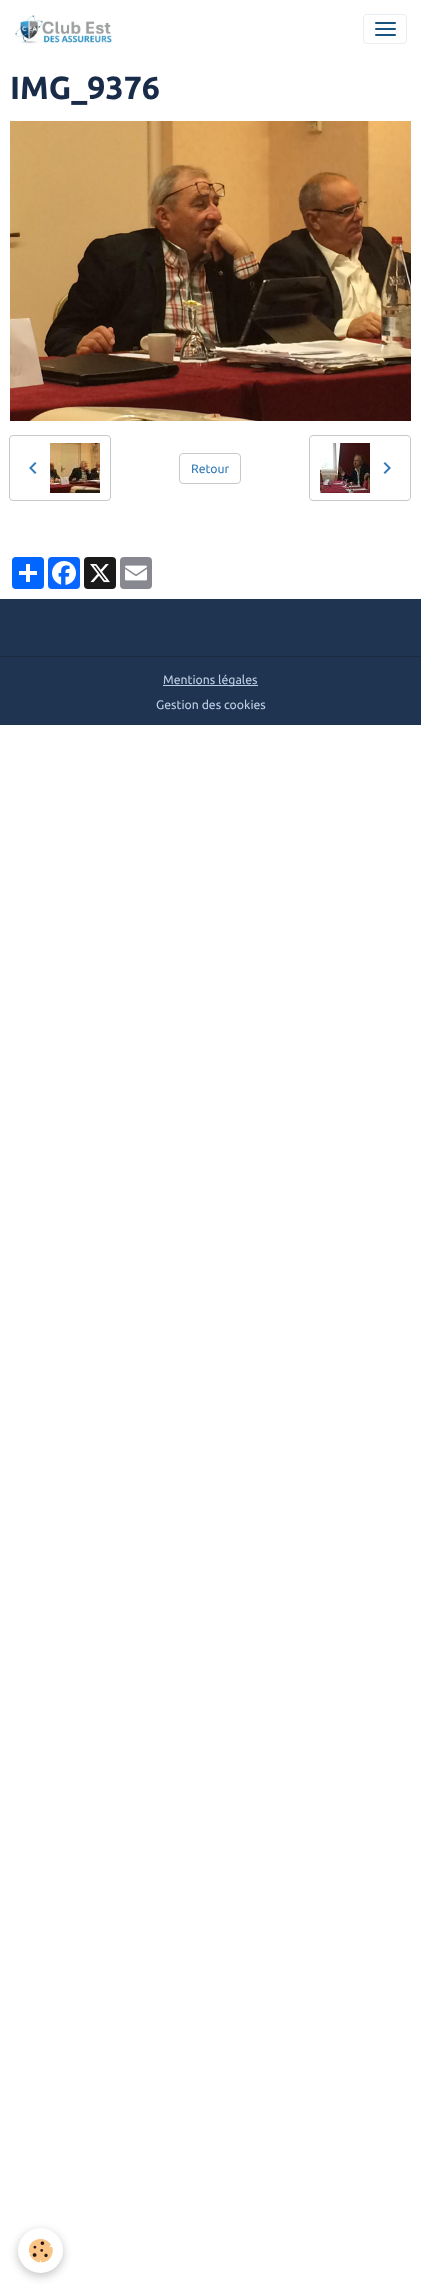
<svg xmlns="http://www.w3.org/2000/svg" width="421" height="2291">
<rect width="100%" height="100%" fill="#fff"/>
<image x="15" y="15" width="97" height="29" href="media/1.png"/>
<rect x="363.5" y="14.5" width="43" height="29" rx="3.5" fill="none" stroke="#e8eef2"/>
<rect x="375" y="22" width="21" height="2" rx="1" fill="#16537e"/>
<rect x="375" y="28" width="21" height="2" rx="1" fill="#16537e"/>
<rect x="375" y="34" width="21" height="2" rx="1" fill="#16537e"/>
<text x="10" y="99" style="font-family:Ubuntu;font-size:32px;font-weight:bold;fill:#182b49">IMG_9376</text>
<image x="10" y="121" width="401" height="300" href="media/2.png"/>
<rect x="9.5" y="435.5" width="101" height="65" rx="3.5" fill="none" stroke="#c7cacb"/>
<image x="29" y="462" width="8" height="12" href="media/3.png"/>
<image x="50" y="443" width="50" height="50" href="media/4.png"/>
<rect x="179.5" y="453.5" width="61" height="30" rx="3.5" fill="none" stroke="#c7cacb"/>
<text x="191" y="473" style="font-family:Ubuntu;font-size:12.25px;fill:#337ab7">Retour</text>
<rect x="309.5" y="435.5" width="101" height="65" rx="3.5" fill="none" stroke="#c7cacb"/>
<image x="320" y="443" width="50" height="50" href="media/5.png"/>
<image x="383" y="462" width="8" height="12" href="media/6.png"/>
<rect x="12" y="557" width="32" height="32" rx="4" fill="#0166ff"/>
<rect x="26" y="564" width="4" height="18" fill="#fff"/>
<rect x="19" y="571" width="18" height="4" fill="#fff"/>
<rect x="48" y="557" width="32" height="32" rx="4" fill="#0866ff"/>
<image x="52" y="561" width="24" height="24" href="media/7.png"/>
<rect x="84" y="557" width="32" height="32" rx="4" fill="#1a1a1a"/>
<image x="90" y="564" width="20" height="19" href="media/8.png"/>
<rect x="120" y="557" width="32" height="32" rx="4" fill="#888990"/>
<image x="125" y="565" width="22" height="16" href="media/9.png"/>
<rect y="599" width="421" height="126" fill="#1f3450"/>
<rect y="656" width="421" height="1" fill="#192a40"/>
<rect x="163" y="685" width="95" height="1" fill="#bdcee5"/>
<text x="163" y="684" style="font-family:Ubuntu;font-size:12.25px;fill:#bdcee5">Mentions légales</text>
<text x="156" y="709" style="font-family:Ubuntu;font-size:12.25px;fill:#bdcee5">Gestion des cookies</text>
<rect x="18" y="2231" width="45" height="45" rx="22.5" fill="#0000003d" filter="blur(5px)"/>
<circle cx="40.5" cy="2250.5" r="22.5" fill="#fff"/>
<image x="28" y="2238" width="25" height="25" href="media/10.png"/>
</svg>
